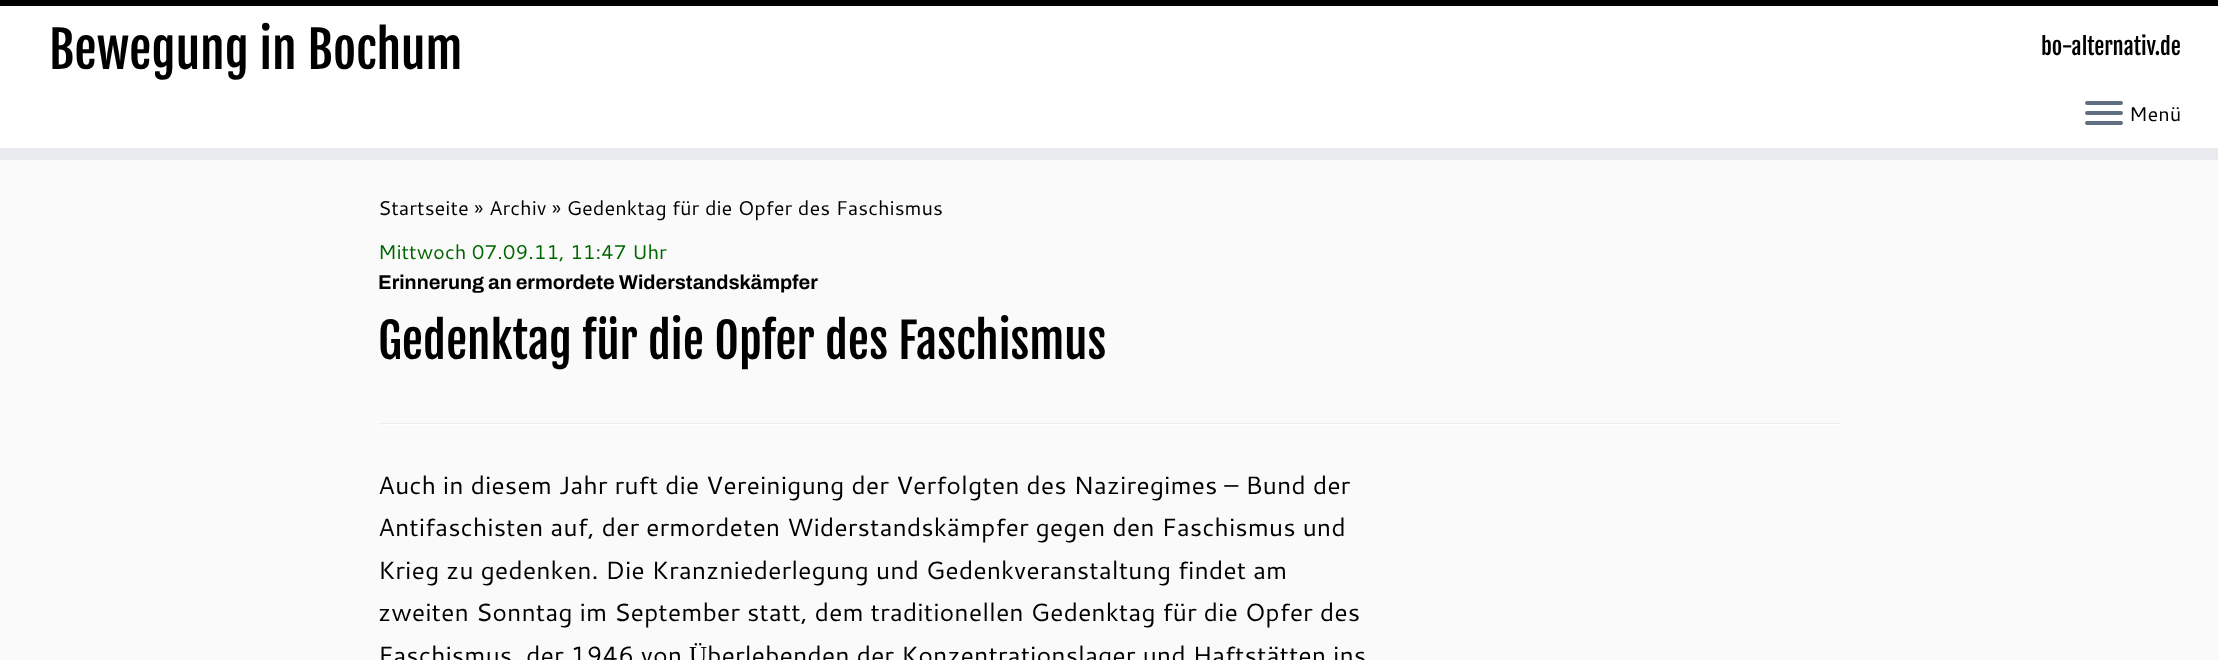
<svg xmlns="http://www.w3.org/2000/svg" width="2218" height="660">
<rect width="100%" height="100%" fill="#fafafa"/>
<rect y="6" width="2218" height="142" fill="#fff"/>
<rect width="2218" height="6" fill="#000"/>
<rect y="148" width="2218" height="12" fill="#e9eaee"/>
<text x="49" y="69" style="font-family:Fjalla One;font-size:50px;fill:#000">Bewegung in Bochum</text>
<text x="2041" y="55" style="font-family:Fjalla One;font-size:22.5px;fill:#000">bo-alternativ.de</text>
<rect x="2085" y="101" width="38" height="4" rx="2" fill="#5f6f81"/>
<rect x="2085" y="111" width="38" height="4" rx="2" fill="#5f6f81"/>
<rect x="2085" y="121" width="38" height="4" rx="2" fill="#5f6f81"/>
<text x="2129" y="121" style="font-family:Cantarell;font-size:20px;fill:#000">Menü</text>
<text x="378" y="215" style="font-family:Cantarell;font-size:20px;fill:#000">Startseite » Archiv » Gedenktag für die Opfer des Faschismus</text>
<text x="378" y="259" style="font-family:Cantarell;font-size:20px;fill:#060">Mittwoch 07.09.11, 11:47 Uhr</text>
<text x="378" y="289" style="font-family:Archivo;font-size:20px;font-weight:600;fill:#000">Erinnerung an ermordete Widerstandskämpfer</text>
<text x="378" y="359" style="font-family:Fjalla One;font-size:47.5px;fill:#000">Gedenktag für die Opfer des Faschismus</text>
<rect x="379" y="423" width="1462" height="1" fill="#eee"/>
<rect x="379" y="424" width="1462" height="1" fill="#fff"/>
<text x="378" y="494" style="font-family:Cantarell;font-size:25px;fill:#000">Auch in diesem Jahr ruft die Vereinigung der Verfolgten des Naziregimes – Bund der</text>
<text x="378" y="536" style="font-family:Cantarell;font-size:25px;fill:#000">Antifaschisten auf, der ermordeten Widerstandskämpfer gegen den Faschismus und</text>
<text x="378" y="579" style="font-family:Cantarell;font-size:25px;fill:#000">Krieg zu gedenken. Die Kranzniederlegung und Gedenkveranstaltung findet am</text>
<text x="378" y="621" style="font-family:Cantarell;font-size:25px;fill:#000">zweiten Sonntag im September statt, dem traditionellen Gedenktag für die Opfer des</text>
<text x="378" y="664" style="font-family:Cantarell;font-size:25px;fill:#000">Faschismus, der 1946 von Überlebenden der Konzentrationslager und Haftstätten ins</text>
</svg>
